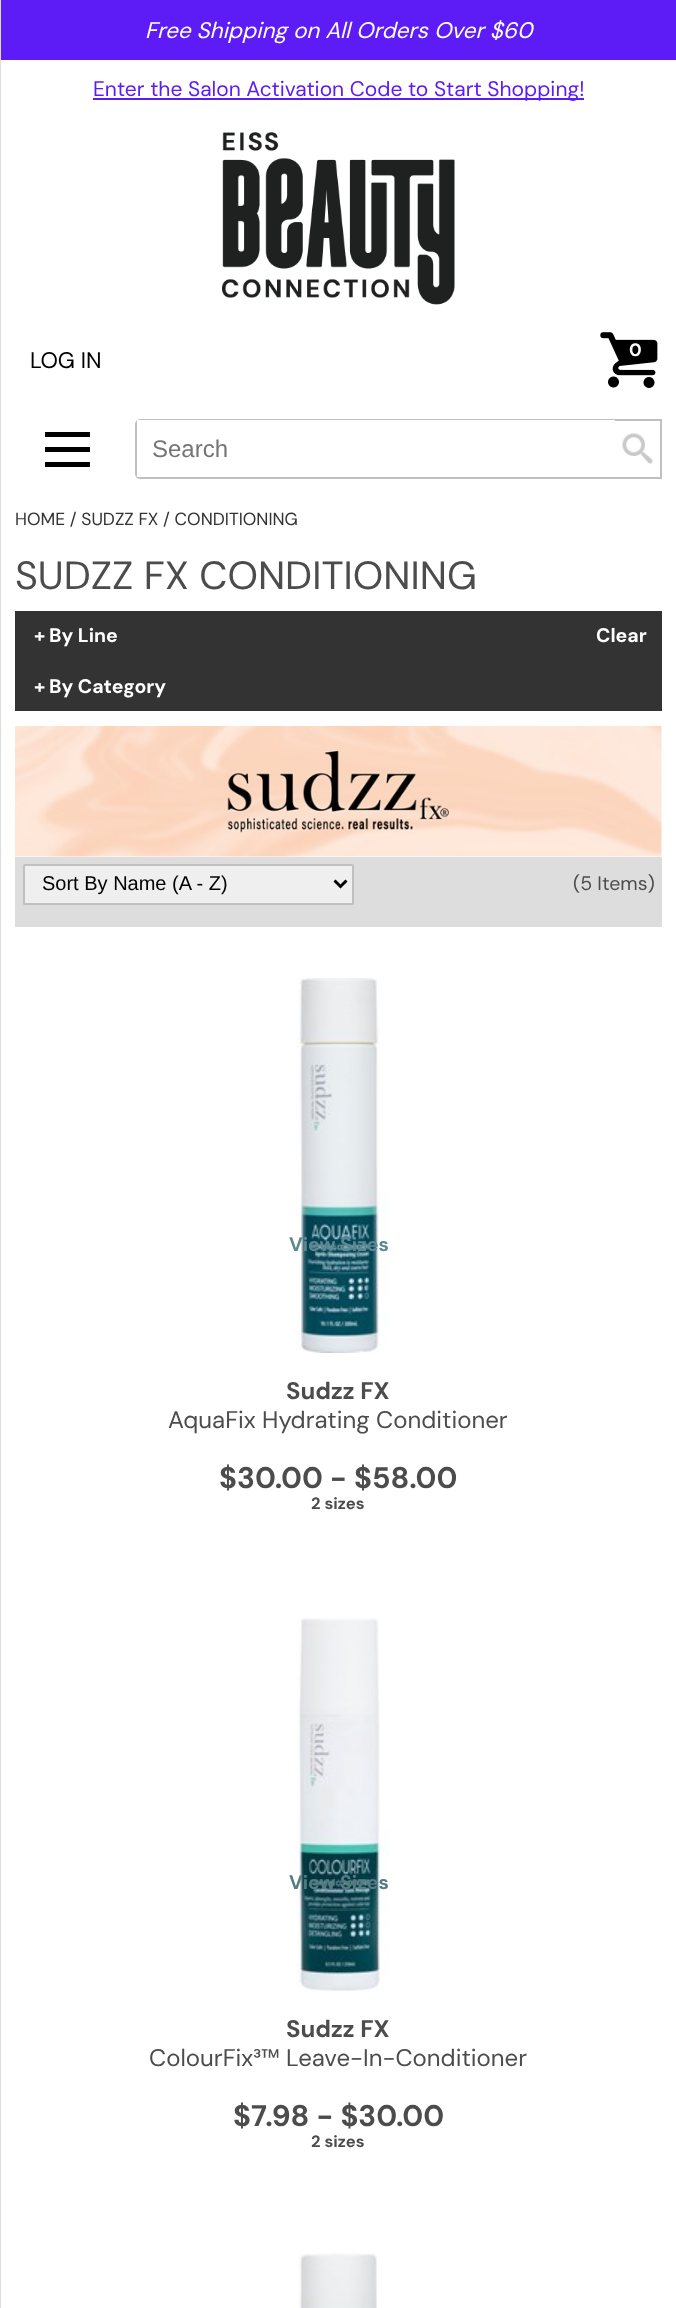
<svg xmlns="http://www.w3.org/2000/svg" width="676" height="2308">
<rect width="100%" height="100%" fill="#fff"/>
<rect x="1" width="675" height="60" fill="#5d1bf5"/>
<text x="145" y="38" style="font-family:DM Sans;font-size:22.5px;font-style:italic;fill:#fff">Free Shipping on All Orders Over $60</text>
<rect x="93" y="98" width="491" height="2" fill="#5d1bf5"/>
<text x="93" y="96" style="font-family:DM Sans;font-size:21px;fill:#5d1bf5">Enter the Salon Activation Code to Start Shopping!</text>
<image x="222" y="132" width="233" height="173" href="media/1.png"/>
<image x="600" y="332" width="58" height="56" href="media/2.png"/>
<text x="629" y="356" style="font-family:DM Sans;font-size:18px;font-weight:bold;fill:#fff">0</text>
<text x="30" y="368" style="font-family:DM Sans;font-size:22.5px;fill:#000">LOG IN</text>
<rect width="1" height="2308" fill="#ddd"/>
<rect x="45" y="432" width="45" height="5" fill="#000"/>
<rect x="45" y="447" width="45" height="5" fill="#000"/>
<rect x="45" y="462" width="45" height="5" fill="#000"/>
<path d="M140 420h521v58h-521c-2 0-4-2-4-4v-50c0-2 2-4 4-4z" fill="none" stroke="#c0c0c0" stroke-width="2"/>
<rect x="137" y="420" width="478" height="57" fill="#fff"/>
<text x="152" y="457" style="font-family:Liberation Sans;font-size:24px;fill:#757575">Search</text>
<image x="622" y="433" width="31" height="31" href="media/3.png"/>
<text x="15" y="525" style="font-family:DM Sans;font-size:17.5px;fill:#333">HOME / SUDZZ FX / CONDITIONING</text>
<text x="15" y="589" style="font-family:DM Sans;font-size:39.4px;fill:#4c4c4c">SUDZZ FX CONDITIONING</text>
<rect x="15" y="611" width="647" height="100" fill="#333"/>
<text x="34" y="642" style="font-family:DM Sans;font-size:19.5px;font-weight:bold;fill:#fff">+</text>
<text x="49" y="642" style="font-family:DM Sans;font-size:19.5px;font-weight:bold;fill:#fff">By Line</text>
<text x="596" y="642" style="font-family:DM Sans;font-size:19.5px;font-weight:bold;fill:#fff">Clear</text>
<text x="34" y="693" style="font-family:DM Sans;font-size:19.5px;font-weight:bold;fill:#fff">+</text>
<text x="49" y="693" style="font-family:DM Sans;font-size:19.5px;font-weight:bold;fill:#fff">By Category</text>
<image x="15" y="726" width="647" height="131" href="media/4.png"/>
<rect x="15" y="857" width="647" height="70" fill="#ddd"/>
<rect x="24" y="865" width="329" height="39" rx="0.5" fill="#efefef" stroke="#c0c0c0" stroke-width="2"/>
<path d="M334.5 880.5l6 6l6-6" fill="none" stroke="#000" stroke-width="3"/>
<text x="42" y="890" style="font-family:Liberation Sans;font-size:20px;fill:#000">Sort By Name (A - Z)</text>
<text x="573" y="890" style="font-family:DM Sans;font-size:19.5px;fill:#4c4c4c">(5 Items)</text>
<image x="295" y="978" width="94" height="375" href="media/5.png"/>
<text x="289" y="1251" style="font-family:DM Sans;font-size:19.5px;font-weight:bold;fill:#5d8893">View Sizes</text>
<text x="286" y="1399" style="font-family:DM Sans;font-size:24px;font-weight:bold;fill:#4c4c4c">Sudzz FX</text>
<text x="168" y="1428" style="font-family:DM Sans;font-size:24px;fill:#4c4c4c">AquaFix Hydrating Conditioner</text>
<text x="219" y="1488" style="font-family:DM Sans;font-size:29.75px;font-weight:bold;fill:#4c4c4c">$30.00 - $58.00</text>
<text x="311" y="1509" style="font-family:DM Sans;font-size:16.5px;font-weight:bold;fill:#4c4c4c">2 sizes</text>
<image x="296" y="1618" width="93" height="373" href="media/6.png"/>
<text x="289" y="1889" style="font-family:DM Sans;font-size:19.5px;font-weight:bold;fill:#557b83">View Sizes</text>
<text x="286" y="2037" style="font-family:DM Sans;font-size:24px;font-weight:bold;fill:#4c4c4c">Sudzz FX</text>
<text x="149" y="2066" style="font-family:DM Sans;font-size:24px;fill:#4c4c4c">ColourFix³™ Leave-In-Conditioner</text>
<text x="233" y="2126" style="font-family:DM Sans;font-size:29.75px;font-weight:bold;fill:#4c4c4c">$7.98 - $30.00</text>
<text x="311" y="2147" style="font-family:DM Sans;font-size:16.5px;font-weight:bold;fill:#4c4c4c">2 sizes</text>
<image x="299" y="2253" width="78" height="55" href="media/7.png"/>
</svg>
